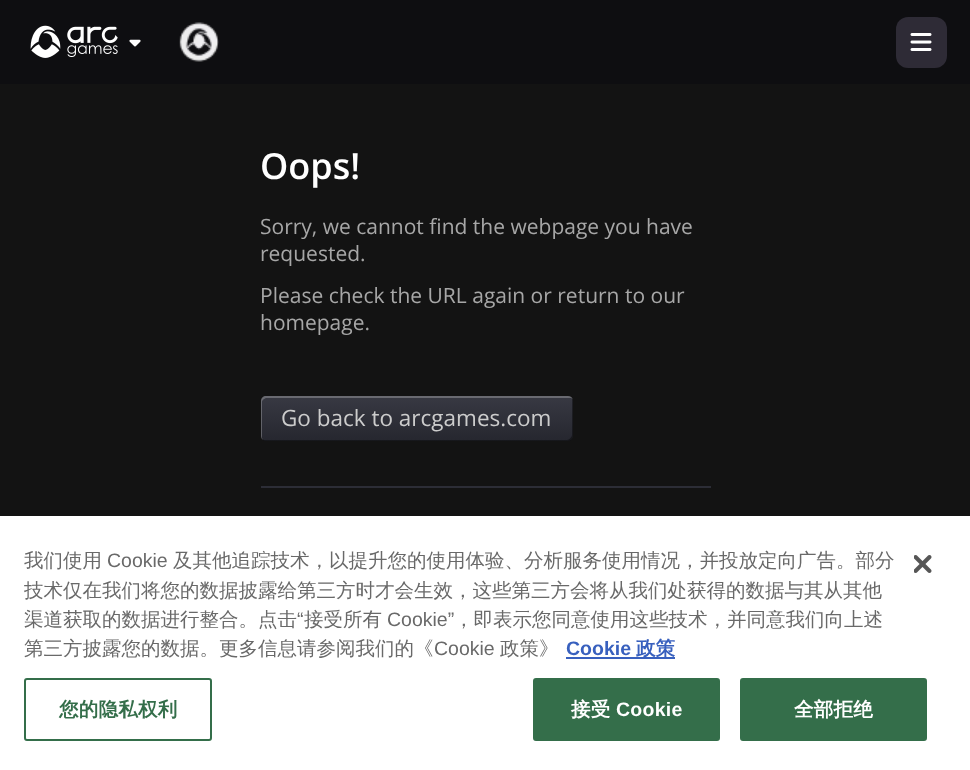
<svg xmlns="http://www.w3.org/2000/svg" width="970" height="770">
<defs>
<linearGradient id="g1" gradientUnits="userSpaceOnUse" x1="417" y1="396" x2="417" y2="441"><stop offset="0" stop-color="#383943"/><stop offset="1" stop-color="#26272f"/></linearGradient>
</defs>
<rect width="100%" height="100%" fill="#131313"/>
<rect width="970" height="84" fill="#0e0e11"/>
<image x="30" y="25" width="88" height="33" href="media/1.png"/>
<image x="129" y="39" width="12" height="8" href="media/2.png"/>
<image x="179" y="22" width="40" height="40" href="media/3.png"/>
<rect x="896" y="17" width="51" height="51" rx="12" fill="#2e2b36"/>
<image x="910" y="33" width="22" height="18" href="media/4.png"/>
<rect x="261" y="486" width="450" height="2" fill="#2c2d36"/>
<text x="260" y="179" style="font-family:Open Sans;font-size:36px;font-weight:600;fill:#fff">Oops!</text>
<text x="260" y="234" style="font-family:Open Sans;font-size:21px;fill:#a7a7a7">Sorry, we cannot find the webpage you have</text>
<text x="260" y="261" style="font-family:Open Sans;font-size:21px;fill:#a7a7a7">requested.</text>
<text x="260" y="303" style="font-family:Open Sans;font-size:21px;fill:#a7a7a7">Please check the URL again or return to our</text>
<text x="260" y="330" style="font-family:Open Sans;font-size:21px;fill:#a7a7a7">homepage.</text>
<rect x="261" y="396" width="312" height="45" rx="5" fill="url(#g1)"/>
<path d="M262 439c1 1 2 2 4 2h302c3 0 5-2 5-5v-35c0-1-1-3-1-4v2v36c0 2-3 5-5 5h-303z" fill="#00000066"/>
<path d="M267 398h303c1 0 2 0 3 1c-1-2-3-3-5-3h-302c-3 0-5 2-5 5v35c0 2 1 3 2 4l-1-2v-36c0-2 3-4 5-4z" fill="#ffffff40"/>
<text x="281" y="426" style="font-family:Open Sans;font-size:22.5px;fill:#ccc">Go back to arcgames.com</text>
<rect y="516" width="970" height="254" fill="#fff"/>
<text x="24" y="567" style="font-family:WenQuanYi Zen Hei;font-size:19.5px;font-weight:500;fill:#696969">我们使用</text>
<text x="107" y="567" style="font-family:Liberation Sans;font-size:19.5px;fill:#696969">Cookie</text>
<text x="173" y="567" style="font-family:WenQuanYi Zen Hei;font-size:19.5px;font-weight:500;fill:#696969">及其他追踪技术，以提升您的使用体验、分析服务使用情况，并投放定向广告。部分</text>
<text x="24" y="597" style="font-family:WenQuanYi Zen Hei;font-size:19.5px;font-weight:500;fill:#696969">技术仅在我们将您的数据披露给第三方时才会生效，这些第三方会将从我们处获得的数据与其从其他</text>
<text x="24" y="626" style="font-family:WenQuanYi Zen Hei;font-size:19.5px;font-weight:500;fill:#696969">渠道获取的数据进行整合。点击</text>
<text x="297" y="626" style="font-family:Liberation Sans;font-size:19.5px;fill:#696969">“</text>
<text x="304" y="626" style="font-family:WenQuanYi Zen Hei;font-size:19.5px;font-weight:500;fill:#696969">接受所有</text>
<text x="387" y="626" style="font-family:Liberation Sans;font-size:19.5px;fill:#696969">Cookie”</text>
<text x="454" y="626" style="font-family:WenQuanYi Zen Hei;font-size:19.5px;font-weight:500;fill:#696969">，即表示您同意使用这些技术，并同意我们向上述</text>
<text x="24" y="655" style="font-family:WenQuanYi Zen Hei;font-size:19.5px;font-weight:500;fill:#696969">第三方披露您的数据。更多信息请参阅我们的《</text>
<text x="434" y="655" style="font-family:Liberation Sans;font-size:19.5px;fill:#696969">Cookie</text>
<text x="500" y="655" style="font-family:WenQuanYi Zen Hei;font-size:19.5px;font-weight:500;fill:#696969">政策》</text>
<text x="566" y="655" style="font-family:Liberation Sans;font-size:19.5px;font-weight:bold;fill:#3860be">Cookie</text>
<rect x="566" y="657" width="109" height="2" fill="#3860be"/>
<text x="636" y="655" style="font-family:WenQuanYi Zen Hei;font-size:19.5px;font-weight:bold;fill:#3860be">政策</text>
<rect x="25" y="679" width="186" height="61" rx="2" fill="none" stroke="#346e4a" stroke-width="2"/>
<text x="59" y="716" style="font-family:WenQuanYi Zen Hei;font-size:19.5px;font-weight:bold;letter-spacing:0.25px;fill:#346e4a">您的隐私权利</text>
<rect x="534" y="679" width="185" height="61" rx="2" fill="#346e4a" stroke="#346e4a" stroke-width="2"/>
<text x="571" y="716" style="font-family:WenQuanYi Zen Hei;font-size:19.5px;font-weight:bold;letter-spacing:0.25px;fill:#fff">接受</text>
<text x="616" y="716" style="font-family:Liberation Sans;font-size:19.5px;font-weight:bold;letter-spacing:0.25px;fill:#fff">Cookie</text>
<rect x="741" y="679" width="185" height="61" rx="2" fill="#346e4a" stroke="#346e4a" stroke-width="2"/>
<text x="794" y="716" style="font-family:WenQuanYi Zen Hei;font-size:19.5px;font-weight:bold;letter-spacing:0.25px;fill:#fff">全部拒绝</text>
<image x="914" y="555" width="18" height="18" href="media/5.png"/>
</svg>
